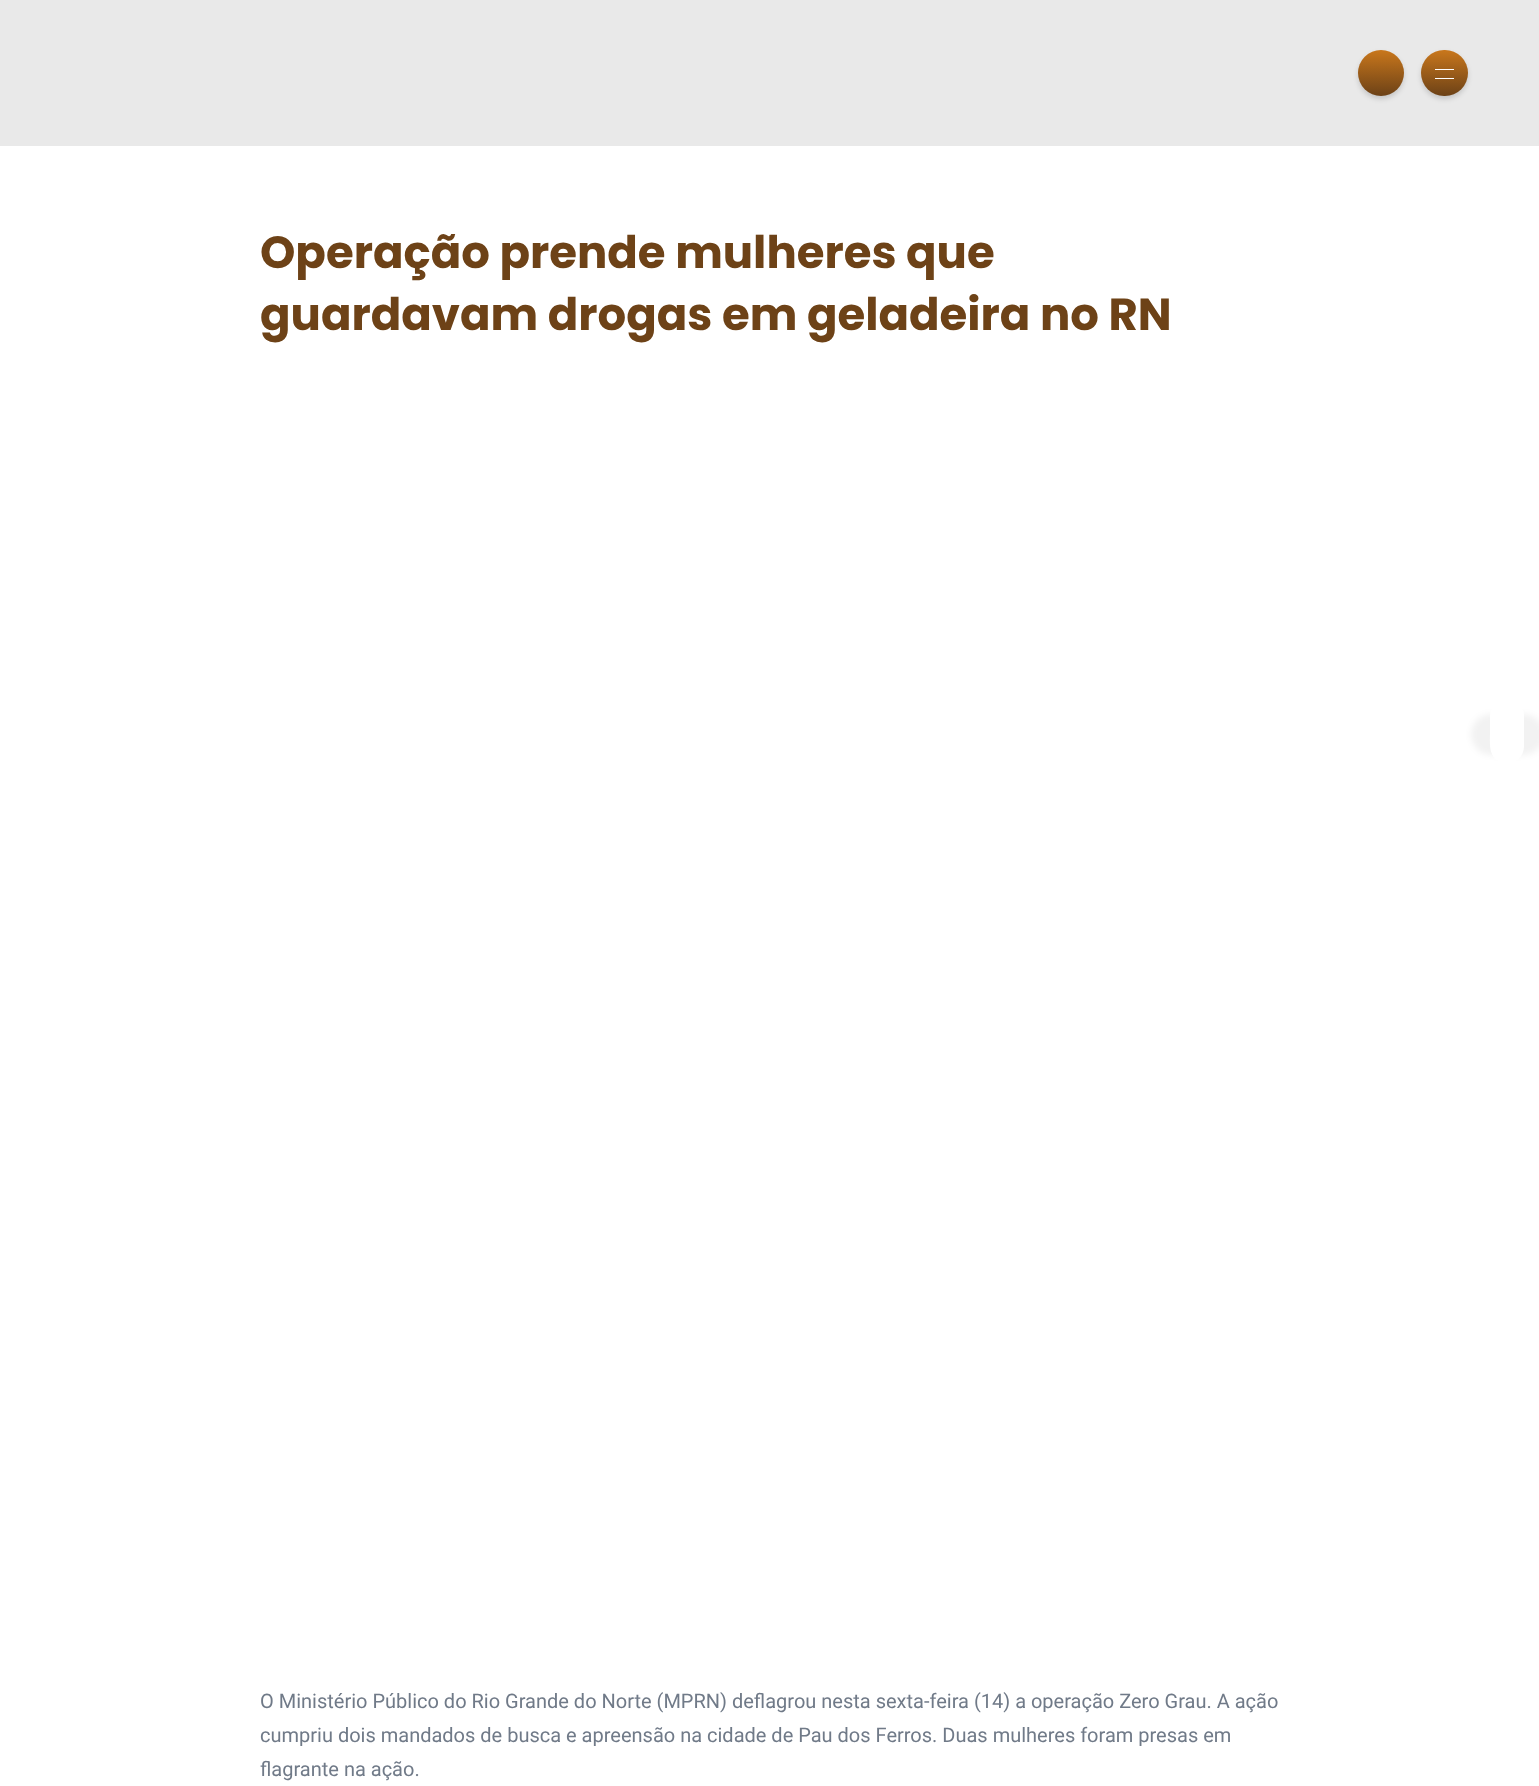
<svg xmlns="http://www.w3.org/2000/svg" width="1539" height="1786">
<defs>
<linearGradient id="g1" gradientUnits="userSpaceOnUse" x1="1381" y1="143" x2="1381" y2="50"><stop offset="0" stop-color="#c9771c"/><stop offset="0.51" stop-color="#6d4217"/><stop offset="1" stop-color="#c9771c"/></linearGradient>
<linearGradient id="g2" gradientUnits="userSpaceOnUse" x1="1444" y1="143" x2="1444" y2="50"><stop offset="0" stop-color="#c9771c"/><stop offset="0.51" stop-color="#6d4217"/><stop offset="1" stop-color="#c9771c"/></linearGradient>
</defs>
<rect width="100%" height="100%" fill="#fff"/>
<rect width="1539" height="146" fill="#e9e9e9"/>
<rect x="1358" y="53" width="46" height="46" rx="23" fill="#00000026" filter="blur(2.5px)"/>
<circle cx="1381" cy="73" r="23" fill="url(#g1)"/>
<rect x="1421" y="53" width="47" height="46" rx="23" fill="#00000026" filter="blur(2.5px)"/>
<rect x="1421" y="50" width="47" height="46" rx="23" fill="url(#g2)"/>
<rect x="1435" y="69" width="19" height="1" fill="#fff"/>
<rect x="1435" y="78" width="19" height="1" fill="#fff"/>
<text x="260" y="268" style="font-family:Poppins;font-size:45px;font-weight:bold;fill:#6d4217">Operação prende mulheres que</text>
<text x="260" y="330" style="font-family:Poppins;font-size:45px;font-weight:bold;fill:#6d4217">guardavam drogas em geladeira no RN</text>
<text x="260" y="1708" style="font-family:Roboto;font-size:20px;fill:#707a88">O Ministério Público do Rio Grande do Norte (MPRN) deflagrou nesta sexta-feira (14) a operação Zero Grau. A ação</text>
<text x="260" y="1742" style="font-family:Roboto;font-size:20px;fill:#707a88">cumpriu dois mandados de busca e apreensão na cidade de Pau dos Ferros. Duas mulheres foram presas em</text>
<text x="260" y="1776" style="font-family:Roboto;font-size:20px;fill:#707a88">flagrante na ação.</text>
<rect x="1471" y="714" width="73" height="41" rx="20.5" fill="#0000000d" filter="blur(3px)"/>
<path d="M1524 715v32c-1 18-25 24-32 7c-3-6-2-16-2-23v-16c1-22 34-21 34 0z" fill="#fff"/>
</svg>
